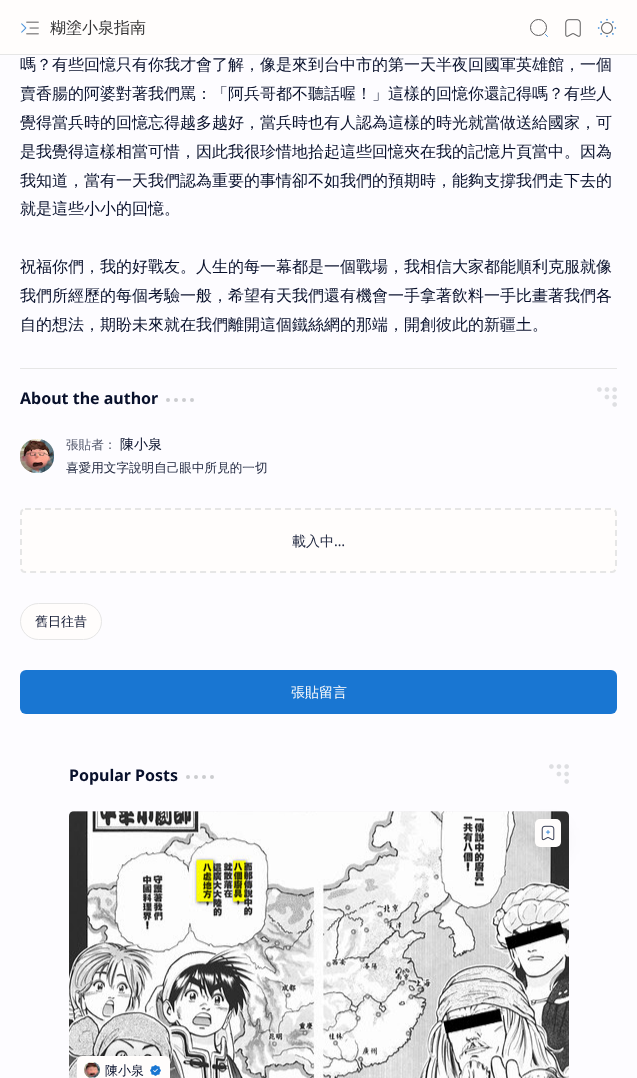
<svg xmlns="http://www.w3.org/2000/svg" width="637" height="1078">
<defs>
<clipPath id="clip1"><rect x="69" y="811" width="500" height="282" rx="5"/></clipPath>
</defs>
<rect width="100%" height="100%" fill="#fdfcff"/>
<rect width="637" height="54" fill="#fffdfc"/>
<image x="21" y="21" width="18" height="14" href="media/1.png"/>
<text x="50" y="33" style="font-family:WenQuanYi Zen Hei;font-size:16px;font-weight:500;fill:#343435">糊塗小泉指南</text>
<circle cx="538.5" cy="27.5" r="8" fill="none" stroke="#5d5c5d"/>
<path d="M547.5 36.5l-2-2" fill="none" stroke="#4791da" stroke-linecap="round" stroke-linejoin="round"/>
<image x="565" y="19" width="16" height="18" href="media/2.png"/>
<image x="597" y="18" width="20" height="20" href="media/3.png"/>
<rect y="54" width="637" height="1" fill="#e6e6e6"/>
<text x="20" y="70" style="font-family:WenQuanYi Zen Hei;font-size:16px;font-weight:500;fill:#08102b">嗎？有些回憶只有你我才會了解，像是來到台中市的第一天半夜回國軍英雄館，一個</text>
<text x="20" y="99" style="font-family:WenQuanYi Zen Hei;font-size:16px;font-weight:500;fill:#08102b">賣香腸的阿婆對著我們罵：「阿兵哥都不聽話喔！」這樣的回憶你還記得嗎？有些人</text>
<text x="20" y="128" style="font-family:WenQuanYi Zen Hei;font-size:16px;font-weight:500;fill:#08102b">覺得當兵時的回憶忘得越多越好，當兵時也有人認為這樣的時光就當做送給國家，可</text>
<text x="20" y="157" style="font-family:WenQuanYi Zen Hei;font-size:16px;font-weight:500;fill:#08102b">是我覺得這樣相當可惜，因此我很珍惜地拾起這些回憶夾在我的記憶片頁當中。因為</text>
<text x="20" y="186" style="font-family:WenQuanYi Zen Hei;font-size:16px;font-weight:500;fill:#08102b">我知道，當有一天我們認為重要的事情卻不如我們的預期時，能夠支撐我們走下去的</text>
<text x="20" y="214" style="font-family:WenQuanYi Zen Hei;font-size:16px;font-weight:500;fill:#08102b">就是這些小小的回憶。</text>
<text x="20" y="272" style="font-family:WenQuanYi Zen Hei;font-size:16px;font-weight:500;fill:#08102b">祝福你們，我的好戰友。人生的每一幕都是一個戰場，我相信大家都能順利克服就像</text>
<text x="20" y="301" style="font-family:WenQuanYi Zen Hei;font-size:16px;font-weight:500;fill:#08102b">我們所經歷的每個考驗一般，希望有天我們還有機會一手拿著飲料一手比畫著我們各</text>
<text x="20" y="330" style="font-family:WenQuanYi Zen Hei;font-size:16px;font-weight:500;fill:#08102b">自的想法，期盼未來就在我們離開這個鐵絲網的那端，開創彼此的新疆土。</text>
<rect x="20" y="368" width="597" height="1" fill="#e6e6e6"/>
<text x="20" y="404" style="font-family:Noto Sans;font-size:16px;font-weight:bold;fill:#08102b">About the author</text>
<path d="M168 400h25" fill="none" stroke="#cbcccf" stroke-width="4" stroke-linecap="round" stroke-dasharray="0 8"/>
<image x="597" y="387" width="20" height="20" href="media/4.png"/>
<rect x="20" y="439" width="34" height="34" rx="16" fill="#f0eff2"/>
<image x="20" y="439" width="34" height="34" href="media/5.png"/>
<text x="66" y="449" style="font-family:WenQuanYi Zen Hei;font-size:12.6px;font-weight:500;fill:#52576b">張貼者：</text>
<text x="120" y="449" style="font-family:WenQuanYi Zen Hei;font-size:14px;font-weight:500;fill:#08102b">陳小泉</text>
<text x="66" y="472" style="font-family:WenQuanYi Zen Hei;font-size:12.6px;font-weight:500;fill:#212840">喜愛用文字說明自己眼中所見的一切</text>
<rect x="20" y="508" width="597" height="65" rx="5" fill="#fffdfc"/>
<path d="M25 509h587c2 0 4 2 4 4v55c0 2-2 4-4 4h-587c-2 0-4-2-4-4v-55c0-2 2-4 4-4z" fill="none" stroke="#e6e6e6" stroke-width="2" stroke-dasharray="6 4"/>
<text x="292" y="546" style="font-family:WenQuanYi Zen Hei;font-size:14px;font-weight:500;fill:#212840">載入中</text>
<text x="334" y="546" style="font-family:Noto Sans;font-size:14px;fill:#212840">…</text>
<rect x="20.5" y="603.5" width="81" height="36" rx="18" fill="#fffdfc" stroke="#e6e6e6"/>
<text x="35" y="626" style="font-family:WenQuanYi Zen Hei;font-size:13px;font-weight:500;fill:#08102b">舊日往昔</text>
<rect x="20" y="670" width="597" height="44" rx="6" fill="#1976d2"/>
<text x="291" y="697" style="font-family:WenQuanYi Zen Hei;font-size:14px;font-weight:500;fill:#fffdfc">張貼留言</text>
<text x="69" y="781" style="font-family:Noto Sans;font-size:16px;font-weight:bold;fill:#08102b">Popular Posts</text>
<path d="M188 777h25" fill="none" stroke="#cbcccf" stroke-width="4" stroke-linecap="round" stroke-dasharray="0 8"/>
<image x="549" y="764" width="20" height="20" href="media/4.png"/>
<rect x="69" y="811" width="500" height="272" rx="5" fill="#f0eff3"/>
<image x="69" y="811" width="500" height="267" href="media/7.png"/>
<rect x="535" y="827" width="26" height="28" rx="5" fill="#0000001a" filter="blur(10px)"/>
<rect x="535" y="819" width="26" height="28" rx="5" fill="#fffdfc"/>
<image x="541" y="825" width="14" height="16" href="media/6.png"/>
<g clip-path="url(#clip1)">
<rect x="77" y="1048" width="93" height="29" rx="5" fill="#0000001a" filter="blur(10px)"/>
</g>
<rect x="77" y="1056" width="93" height="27" rx="5" fill="#fffdfc"/>
<circle cx="92" cy="1070" r="8" fill="#f2f0ef"/>
<image x="84" y="1062" width="16" height="16" href="media/8.png"/>
<text x="105" y="1075" style="font-family:WenQuanYi Zen Hei;font-size:13px;font-weight:500;fill:#08102b">陳小泉</text>
<image x="150" y="1065" width="11" height="11" href="media/9.png"/>
</svg>
